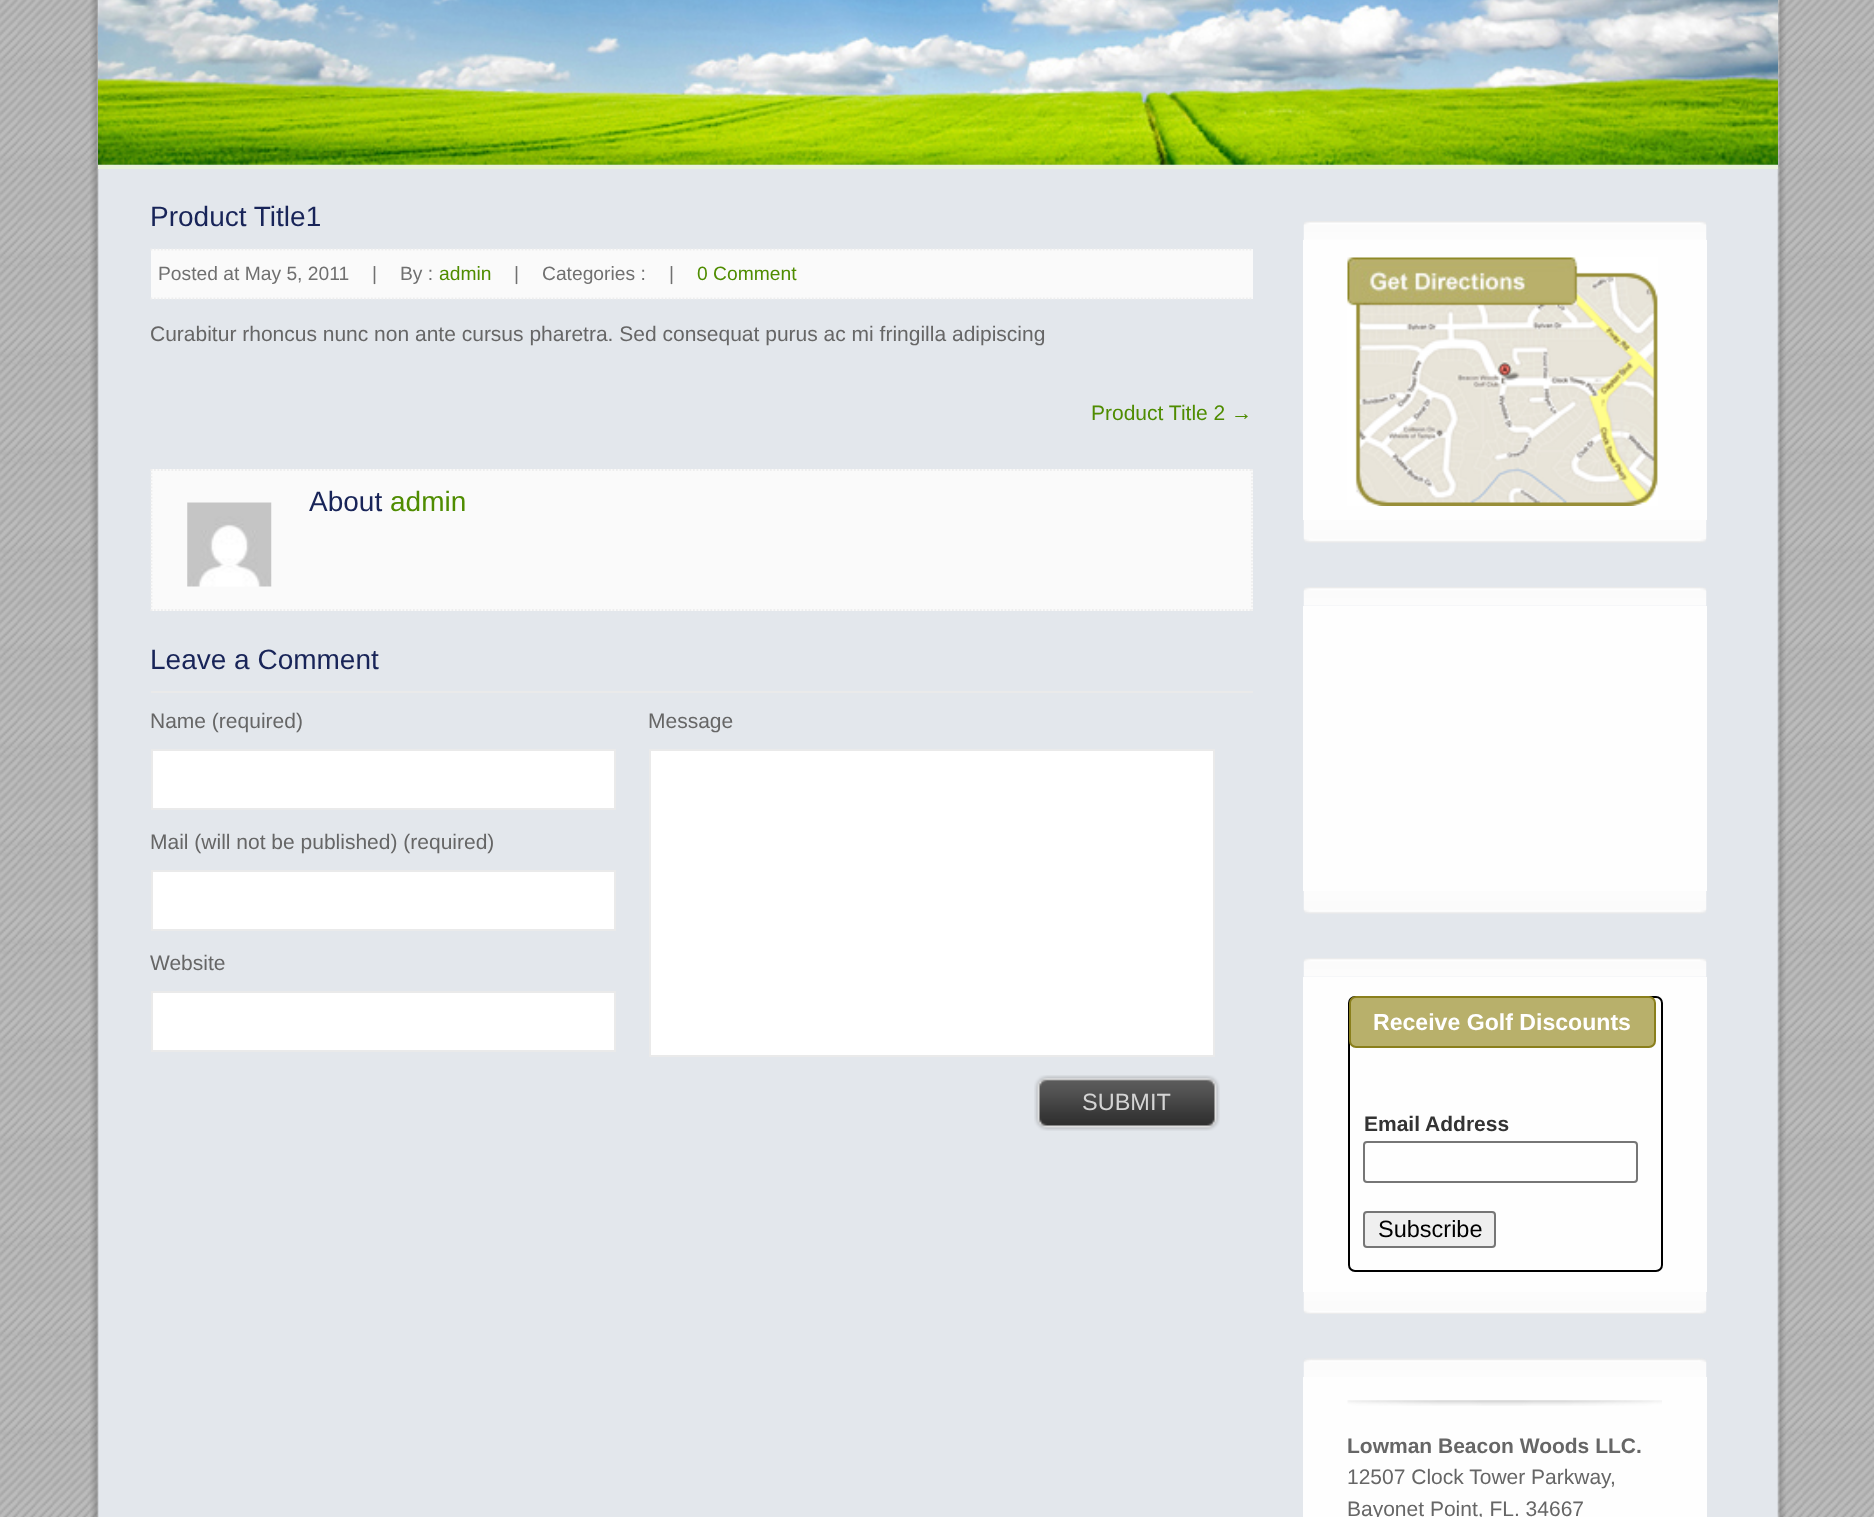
<svg xmlns="http://www.w3.org/2000/svg" width="1874" height="1517">
<rect width="100%" height="100%" fill="#fff"/>
<image x="0" y="0" width="1874" height="1517" href="media/1.png"/>
<image x="90" y="0" width="1696" height="1517" href="media/2.png"/>
<rect x="98" y="165" width="1680" height="4" fill="#eaf2dd"/>
<image x="98" y="0" width="1680" height="165" href="media/3.png"/>
<text x="150" y="226" style="font-family:Liberation Sans;font-size:28px;fill:#182458">Product Title1</text>
<rect x="151" y="249" width="1102" height="50" fill="#fafafa"/>
<path d="M150.5 249.5h1102.5" fill="none" stroke="#eee" stroke-width="1.8" stroke-dasharray="1.75 1.75"/>
<path d="M150.5 298.5h1102.5" fill="none" stroke="#eee" stroke-width="1.8" stroke-dasharray="1.75 1.75"/>
<text x="158" y="280" style="font-family:Liberation Sans;font-size:19.25px;fill:#707070">Posted at May 5, 2011</text>
<text x="372" y="280" style="font-family:Liberation Sans;font-size:19.25px;fill:#707070">|</text>
<text x="400" y="280" style="font-family:Liberation Sans;font-size:19.25px;fill:#707070">By :</text>
<text x="439" y="280" style="font-family:Liberation Sans;font-size:19.25px;fill:#4f8c00">admin</text>
<text x="514" y="280" style="font-family:Liberation Sans;font-size:19.25px;fill:#707070">|</text>
<text x="542" y="280" style="font-family:Liberation Sans;font-size:19.25px;fill:#707070">Categories :</text>
<text x="669" y="280" style="font-family:Liberation Sans;font-size:19.25px;fill:#707070">|</text>
<text x="697" y="280" style="font-family:Liberation Sans;font-size:19.25px;fill:#4f8c00">0 Comment</text>
<text x="150" y="341" style="font-family:Liberation Sans;font-size:21px;fill:#666">Curabitur rhoncus nunc non ante cursus pharetra. Sed consequat purus ac mi fringilla adipiscing</text>
<text x="1091" y="420" style="font-family:Liberation Sans;font-size:21px;fill:#4f8c00">Product Title 2 →</text>
<rect x="151" y="469" width="1102" height="142" fill="#fafafa"/>
<path d="M150.5 470h1102.5" fill="none" stroke="#eee" stroke-width="1.8" stroke-dasharray="1.75 1.75"/>
<path d="M1252 469v142" fill="none" stroke="#eee" stroke-width="1.8" stroke-dasharray="1.75 1.75"/>
<path d="M150.5 610h1102.5" fill="none" stroke="#eee" stroke-width="1.8" stroke-dasharray="1.75 1.75"/>
<path d="M151.5 469v142" fill="none" stroke="#eee" stroke-width="1.8" stroke-dasharray="1.75 1.75"/>
<image x="187" y="502" width="85" height="85" href="media/4.png"/>
<text x="309" y="511" style="font-family:Liberation Sans;font-size:28px;fill:#182458">About</text>
<text x="390" y="511" style="font-family:Liberation Sans;font-size:28px;fill:#4f8c00">admin</text>
<rect x="151" y="691" width="1102" height="2" fill="#eaeaea"/>
<text x="150" y="669" style="font-family:Liberation Sans;font-size:28px;fill:#182458">Leave a Comment</text>
<text x="150" y="728" style="font-family:Liberation Sans;font-size:21px;fill:#666">Name (required)</text>
<rect x="152" y="750" width="463" height="59" fill="#fff" stroke="#eaeaea" stroke-width="2"/>
<text x="150" y="849" style="font-family:Liberation Sans;font-size:21px;fill:#666">Mail (will not be published) (required)</text>
<rect x="152" y="871" width="463" height="59" fill="#fff" stroke="#eaeaea" stroke-width="2"/>
<text x="150" y="970" style="font-family:Liberation Sans;font-size:21px;fill:#666">Website</text>
<rect x="152" y="992" width="463" height="59" fill="#fff" stroke="#eaeaea" stroke-width="2"/>
<text x="648" y="728" style="font-family:Liberation Sans;font-size:21px;fill:#666">Message</text>
<rect x="650" y="750" width="564" height="306" fill="#fff" stroke="#eaeaea" stroke-width="2"/>
<image x="1034" y="1075" width="186" height="56" href="media/5.png"/>
<text x="1082" y="1110" style="font-family:Liberation Sans;font-size:23.5px;fill:#d4d4d4">SUBMIT</text>
<image x="1303" y="221" width="404" height="19" href="media/6.png"/>
<rect x="1303" y="240" width="404" height="280" fill="#fefefe"/>
<image x="1347" y="257" width="311" height="249" href="media/7.png"/>
<image x="1303" y="520" width="404" height="23" href="media/8.png"/>
<image x="1303" y="587" width="404" height="19" href="media/9.png"/>
<rect x="1303" y="606" width="404" height="285" fill="#fefefe"/>
<image x="1303" y="891" width="404" height="23" href="media/8.png"/>
<image x="1303" y="958" width="404" height="19" href="media/9.png"/>
<rect x="1303" y="977" width="404" height="315" fill="#fefefe"/>
<rect x="1349" y="997" width="313" height="274" rx="6" fill="none" stroke="#000" stroke-width="2"/>
<rect x="1350" y="997" width="305" height="50" rx="6" fill="#b8b06b" stroke="#8a7f1c" stroke-width="2"/>
<text x="1373" y="1030" style="font-family:Liberation Sans;font-size:23.1px;font-weight:bold;fill:#fff">Receive Golf Discounts</text>
<text x="1364" y="1131" style="font-family:Liberation Sans;font-size:21px;font-weight:bold;fill:#333">Email Address</text>
<rect x="1364" y="1142" width="273" height="40" rx="3" fill="none" stroke="#767676" stroke-width="2"/>
<rect x="1364" y="1212" width="131" height="35" rx="3" fill="#efefef" stroke="#767676" stroke-width="2"/>
<text x="1378" y="1237" style="font-family:Liberation Sans;font-size:23.5px;fill:#000">Subscribe</text>
<image x="1303" y="1292" width="404" height="22" href="media/10.png"/>
<image x="1303" y="1358" width="404" height="19" href="media/11.png"/>
<rect x="1303" y="1377" width="404" height="140" fill="#fefefe"/>
<image x="1347" y="1400" width="315" height="6" href="media/12.png"/>
<text x="1347" y="1453" style="font-family:Liberation Sans;font-size:21px;font-weight:bold;fill:#666">Lowman Beacon Woods LLC.</text>
<text x="1347" y="1484" style="font-family:Liberation Sans;font-size:21px;fill:#666">12507 Clock Tower Parkway,</text>
<text x="1347" y="1516" style="font-family:Liberation Sans;font-size:21px;fill:#666">Bayonet Point, FL. 34667</text>
</svg>
